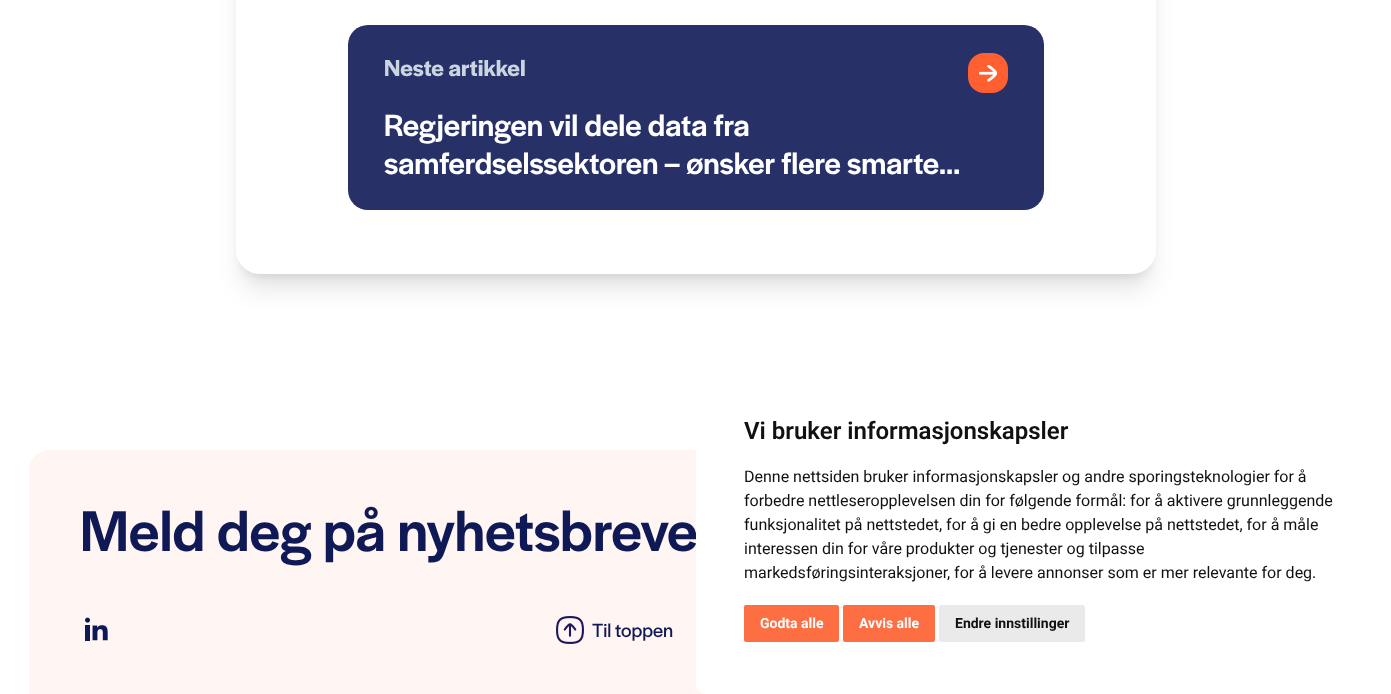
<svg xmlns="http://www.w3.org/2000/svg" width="1391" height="694">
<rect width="100%" height="100%" fill="#fff"/>
<rect x="242" y="-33" width="908" height="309" rx="18" fill="#0000001a" filter="blur(5px)"/>
<rect x="241" y="-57" width="910" height="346" rx="19" fill="#0000001a" filter="blur(12.5px)"/>
<rect x="236" y="-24" width="920" height="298" rx="24" fill="#fff"/>
<rect x="348" y="25" width="696" height="185" rx="20" fill="#273067"/>
<text x="384" y="76" style="font-family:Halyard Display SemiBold;font-size:24px;font-weight:600;fill:#cbd5e1">Neste artikkel</text>
<rect x="968" y="53" width="40" height="40" rx="16" fill="#ff5f31"/>
<image x="979" y="65" width="18" height="17" href="media/1.png"/>
<text x="384" y="136" style="font-family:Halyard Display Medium;font-size:32px;font-weight:500;fill:#fff">Regjeringen vil dele data fra</text>
<text x="384" y="174" style="font-family:Halyard Display Medium;font-size:32px;font-weight:500;fill:#fff">samferdselssektoren – ønsker flere smarte…</text>
<path d="M49 450h1294c11 0 20 9 20 20v224h-1334v-224c0-11 9-20 20-20z" fill="#fff6f3"/>
<text x="80" y="551" style="font-family:Halyard Display Medium;font-size:60px;font-weight:500;fill:#0f1956">Meld deg på nyhetsbreve</text>
<image x="85" y="617" width="23" height="24" href="media/2.png"/>
<image x="556" y="616" width="28" height="28" href="media/3.png"/>
<text x="592" y="637" style="font-family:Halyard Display;font-size:20px;fill:#0f1956">Til toppen</text>
<rect x="696" y="365" width="695" height="329" rx="10" fill="#fff"/>
<text x="744" y="439" style="font-family:Roboto;font-size:24px;font-weight:600;fill:#111">Vi bruker informasjonskapsler</text>
<text x="744" y="482" style="font-family:Roboto;font-size:16px;fill:#111">Denne nettsiden bruker informasjonskapsler og andre sporingsteknologier for å</text>
<text x="744" y="506" style="font-family:Roboto;font-size:16px;fill:#111">forbedre nettleseropplevelsen din for følgende formål: for å aktivere grunnleggende</text>
<text x="744" y="530" style="font-family:Roboto;font-size:16px;fill:#111">funksjonalitet på nettstedet, for å gi en bedre opplevelse på nettstedet, for å måle</text>
<text x="744" y="554" style="font-family:Roboto;font-size:16px;fill:#111">interessen din for våre produkter og tjenester og tilpasse</text>
<text x="744" y="578" style="font-family:Roboto;font-size:16px;fill:#111">markedsføringsinteraksjoner</text>
<text x="947" y="578" style="font-family:Roboto;font-size:16px;fill:#111">, for å levere annonser som er mer relevante for deg.</text>
<rect x="744" y="605" width="95" height="37" rx="2" fill="#fe6e43"/>
<text x="760" y="628" style="font-family:Roboto;font-size:14px;font-weight:bold;fill:#fff">Godta alle</text>
<rect x="843" y="605" width="92" height="37" rx="2" fill="#fe6e43"/>
<text x="859" y="628" style="font-family:Roboto;font-size:14px;font-weight:bold;fill:#fff">Avvis alle</text>
<rect x="939" y="605" width="146" height="37" rx="2" fill="#eaeaea"/>
<text x="955" y="628" style="font-family:Roboto;font-size:14px;font-weight:bold;fill:#111">Endre innstillinger</text>
</svg>
